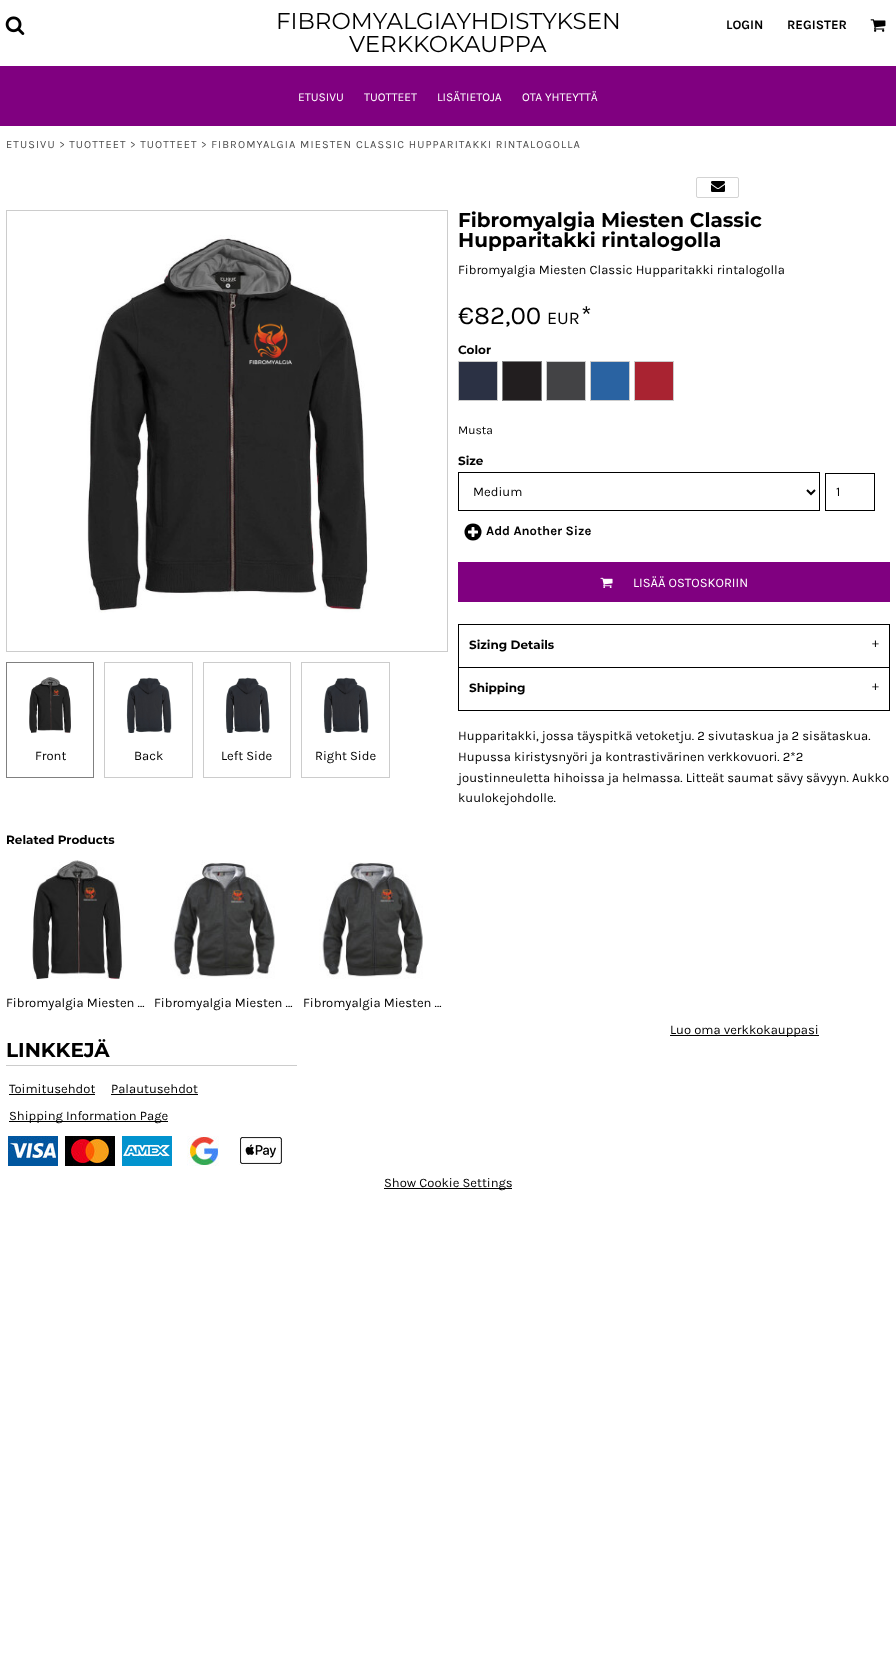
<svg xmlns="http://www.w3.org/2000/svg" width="896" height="1661">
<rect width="100%" height="100%" fill="#fff"/>
<image x="5" y="16" width="20" height="19" href="media/1.png"/>
<text x="276" y="29" style="font-family:Montserrat;font-size:23px;font-weight:100;fill:#000">FIBROMYALGIAYHDISTYKSEN</text>
<text x="349" y="52" style="font-family:Montserrat;font-size:23px;font-weight:100;fill:#000">VERKKOKAUPPA</text>
<text x="726" y="29" style="font-family:Karla;font-size:13px;font-weight:bold;fill:#000">LOGIN</text>
<text x="787" y="29" style="font-family:Karla;font-size:13px;font-weight:bold;fill:#000">REGISTER</text>
<image x="870" y="19" width="16" height="13" href="media/2.png"/>
<rect y="66" width="896" height="60" fill="#800080"/>
<text x="298" y="101" style="font-family:Karla;font-size:12px;fill:#fff">ETUSIVU</text>
<text x="364" y="101" style="font-family:Karla;font-size:12px;fill:#fff">TUOTTEET</text>
<text x="437" y="101" style="font-family:Karla;font-size:12px;fill:#fff">LISÄTIETOJA</text>
<text x="522" y="101" style="font-family:Karla;font-size:12px;fill:#fff">OTA YHTEYTTÄ</text>
<text x="6" y="148" style="font-family:Karla;font-size:11px;letter-spacing:1.1px;fill:#4d4d4d">ETUSIVU &gt; TUOTTEET &gt; TUOTTEET &gt; FIBROMYALGIA MIESTEN CLASSIC HUPPARITAKKI RINTALOGOLLA</text>
<rect x="696.5" y="177.5" width="42" height="20" rx="1.5" fill="none" stroke="#d3d3d3"/>
<image x="711" y="181" width="14" height="11" href="media/3.png"/>
<rect x="6.5" y="210.5" width="441" height="441" fill="none" stroke="#ccc"/>
<image x="87" y="235" width="283" height="378" href="media/4.png"/>
<image x="249" y="323" width="43" height="42" href="media/5.png"/>
<rect x="6.5" y="662.5" width="87" height="115" fill="none" stroke="#808080"/>
<image x="29" y="677" width="42" height="56" href="media/6.png"/>
<text x="35" y="760" style="font-family:Karla;font-size:13px;fill:#000">Front</text>
<rect x="104.5" y="662.5" width="88" height="115" fill="none" stroke="#ccc"/>
<image x="126" y="677" width="46" height="56" href="media/7.png"/>
<text x="134" y="760" style="font-family:Karla;font-size:13px;fill:#000">Back</text>
<rect x="203.5" y="662.5" width="87" height="115" fill="none" stroke="#ccc"/>
<image x="225" y="677" width="45" height="56" href="media/8.png"/>
<text x="221" y="760" style="font-family:Karla;font-size:13px;fill:#000">Left Side</text>
<rect x="301.5" y="662.5" width="88" height="115" fill="none" stroke="#ccc"/>
<image x="323" y="677" width="46" height="56" href="media/7.png"/>
<text x="315" y="760" style="font-family:Karla;font-size:13px;fill:#000">Right Side</text>
<text x="458" y="227" style="font-family:'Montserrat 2';font-size:20px;font-weight:100;fill:#000">Fibromyalgia Miesten Classic</text>
<text x="458" y="247" style="font-family:'Montserrat 2';font-size:20px;font-weight:100;fill:#000">Hupparitakki rintalogolla</text>
<text x="458" y="274" style="font-family:Karla;font-size:13px;fill:#000">Fibromyalgia Miesten Classic Hupparitakki rintalogolla</text>
<text x="458" y="324" style="font-family:Karla;font-size:26px;fill:#000">€82,00</text>
<text x="547" y="324" style="font-family:Karla;font-size:18px;fill:#000">EUR</text>
<text x="581" y="324" style="font-family:Karla;font-size:26px;fill:#000">*</text>
<text x="458" y="354" style="font-family:'Montserrat 2';font-size:12px;font-weight:100;fill:#000">Color</text>
<rect x="458.5" y="361.5" width="39" height="39" fill="none" stroke="#ccc"/>
<rect x="459" y="362" width="38" height="38" fill="#2b3144"/>
<rect x="502.5" y="361.5" width="39" height="39" fill="none" stroke="#808080"/>
<rect x="503" y="362" width="38" height="38" fill="#221e1f"/>
<rect x="546.5" y="361.5" width="39" height="39" fill="none" stroke="#ccc"/>
<rect x="547" y="362" width="38" height="38" fill="#434345"/>
<rect x="590.5" y="361.5" width="39" height="39" fill="none" stroke="#ccc"/>
<rect x="591" y="362" width="38" height="38" fill="#2a63a2"/>
<rect x="634.5" y="361.5" width="39" height="39" fill="none" stroke="#ccc"/>
<rect x="635" y="362" width="38" height="38" fill="#a92331"/>
<text x="458" y="434" style="font-family:Karla;font-size:12px;fill:#000">Musta</text>
<text x="458" y="465" style="font-family:'Montserrat 2';font-size:12px;font-weight:100;fill:#000">Size</text>
<rect x="458.5" y="472.5" width="361" height="38" fill="none" stroke="#000"/>
<path d="M807 490l4 4l4-4" fill="none" stroke="#000" stroke-width="2"/>
<text x="473" y="496" style="font-family:Karla;font-size:13px;fill:#000">Medium</text>
<rect x="825.5" y="473.5" width="49" height="37" fill="none" stroke="#000"/>
<text x="836" y="496" style="font-family:Karla;font-size:13px;fill:#000">1</text>
<text x="463" y="542" style="font-family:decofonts;font-size:20px;fill:#000">0</text>
<text x="486" y="535" style="font-family:Karla;font-size:13px;font-weight:bold;fill:#000">Add Another Size</text>
<rect x="458" y="562" width="432" height="40" fill="#800080"/>
<image x="600" y="577" width="13" height="11" href="media/9.png"/>
<text x="633" y="587" style="font-family:Karla;font-size:13px;fill:#fff">LISÄÄ OSTOSKORIIN</text>
<rect x="458.5" y="624.5" width="431" height="86" fill="none" stroke="#000"/>
<text x="469" y="649" style="font-family:'Montserrat 2';font-size:12px;font-weight:100;fill:#000">Sizing Details</text>
<text x="872" y="647" style="font-family:Karla;font-size:13px;fill:#000">+</text>
<rect x="459" y="667" width="430" height="1" fill="#000"/>
<text x="469" y="692" style="font-family:'Montserrat 2';font-size:12px;font-weight:100;fill:#000">Shipping</text>
<text x="872" y="690" style="font-family:Karla;font-size:13px;fill:#000">+</text>
<text x="458" y="740" style="font-family:Karla;font-size:13px;fill:#000">Hupparitakki, jossa täyspitkä vetoketju. 2 sivutaskua ja 2 sisätaskua.</text>
<text x="458" y="761" style="font-family:Karla;font-size:13px;fill:#000">Hupussa kiristysnyöri ja kontrastivärinen verkkovuori. 2*2</text>
<text x="458" y="782" style="font-family:Karla;font-size:13px;fill:#000">joustinneuletta hihoissa ja helmassa. Litteät saumat sävy sävyyn. Aukko</text>
<text x="458" y="802" style="font-family:Karla;font-size:13px;fill:#000">kuulokejohdolle.</text>
<text x="6" y="844" style="font-family:'Montserrat 2';font-size:12px;font-weight:100;fill:#000">Related Products</text>
<image x="32" y="860" width="92" height="120" href="media/10.png"/>
<text x="6" y="1007" style="font-family:Karla;font-size:13px;fill:#000">Fibromyalgia Miesten …</text>
<image x="170" y="860" width="105" height="119" href="media/11.png"/>
<text x="154" y="1007" style="font-family:Karla;font-size:13px;fill:#000">Fibromyalgia Miesten …</text>
<image x="319" y="862" width="104" height="117" href="media/12.png"/>
<text x="303" y="1007" style="font-family:Karla;font-size:13px;fill:#000">Fibromyalgia Miesten …</text>
<rect x="670" y="1035" width="149" height="1" fill="#000"/>
<text x="670" y="1034" style="font-family:Karla;font-size:13px;fill:#000">Luo oma verkkokauppasi</text>
<rect x="6" y="1065" width="291" height="1" fill="#ccc"/>
<text x="6" y="1057" style="font-family:'Montserrat 2';font-size:20px;font-weight:100;fill:#000">LINKKEJÄ</text>
<text x="9" y="1093" style="font-family:Karla;font-size:13px;fill:#000">Toimitusehdot</text>
<rect x="9" y="1094" width="86" height="1" fill="#000"/>
<text x="111" y="1093" style="font-family:Karla;font-size:13px;fill:#000">Palautusehdot</text>
<rect x="111" y="1094" width="87" height="1" fill="#000"/>
<rect x="9" y="1121" width="159" height="1" fill="#000"/>
<text x="9" y="1120" style="font-family:Karla;font-size:13px;fill:#000">Shipping Information Page</text>
<image x="8" y="1136" width="50" height="30" href="media/13.png"/>
<image x="65" y="1136" width="50" height="30" href="media/14.png"/>
<image x="122" y="1136" width="50" height="30" href="media/15.png"/>
<image x="187" y="1136" width="32" height="30" href="media/16.png"/>
<image x="239" y="1137" width="44" height="29" href="media/17.png"/>
<rect x="384" y="1188" width="128" height="1" fill="#000"/>
<text x="384" y="1187" style="font-family:Karla;font-size:13px;fill:#000">Show Cookie Settings</text>
</svg>
